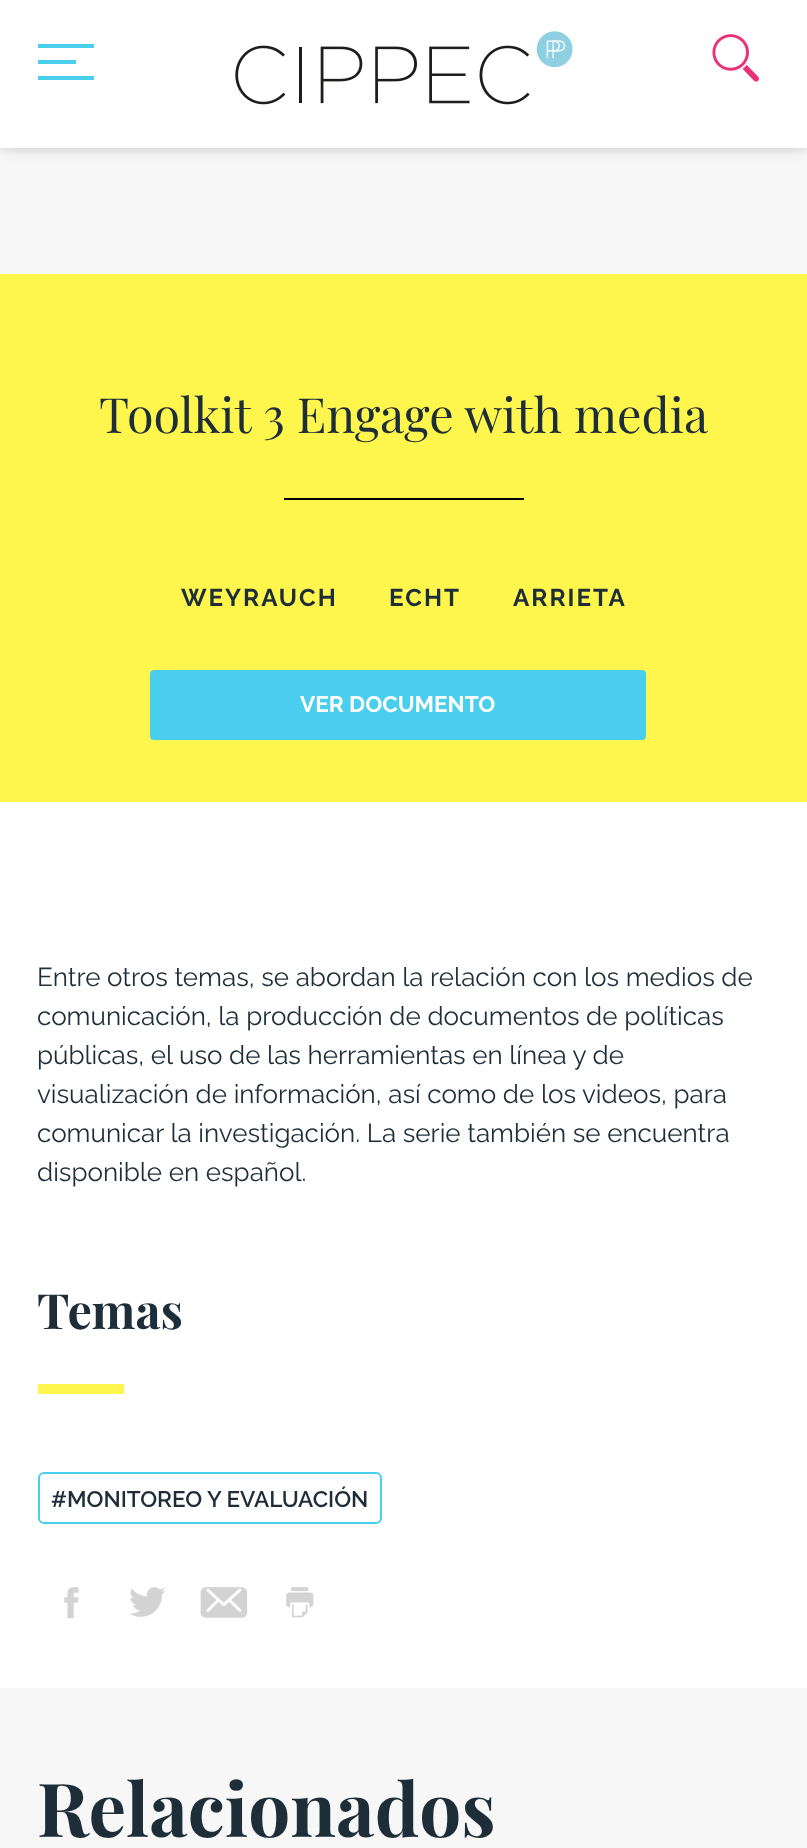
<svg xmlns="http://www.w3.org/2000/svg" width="807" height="1848">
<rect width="100%" height="100%" fill="#f7f7f7"/>
<rect width="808" height="148" fill="#00000033" filter="blur(7px)"/>
<rect width="807" height="148" fill="#fff"/>
<image x="235" y="31" width="338" height="74" href="media/1.png"/>
<rect x="38" y="44" width="56" height="4" fill="#4aceed"/>
<rect x="38" y="60" width="38" height="4" fill="#4aceed"/>
<rect x="38" y="76" width="56" height="4" fill="#4aceed"/>
<image x="712" y="34" width="47" height="48" href="media/2.png"/>
<rect y="274" width="807" height="528" fill="#fff64d"/>
<text x="99" y="433" style="font-family:Playfair Display;font-size:48.5px;fill:#1d2e38">Toolkit 3 Engage with media</text>
<rect x="284" y="498" width="240" height="2" fill="#000"/>
<text x="181" y="606" style="font-family:Raleway;font-size:24.25px;font-weight:bold;letter-spacing:2px;fill:#1d2e38">WEYRAUCH</text>
<text x="389" y="606" style="font-family:Raleway;font-size:24.25px;font-weight:bold;letter-spacing:2px;fill:#1d2e38">ECHT</text>
<text x="513" y="606" style="font-family:Raleway;font-size:24.25px;font-weight:bold;letter-spacing:2px;fill:#1d2e38">ARRIETA</text>
<rect x="150" y="670" width="496" height="70" rx="4" fill="#4aceed"/>
<text x="300" y="712" style="font-family:Raleway;font-size:22.5px;font-weight:bold;fill:#fff">VER DOCUMENTO</text>
<rect y="802" width="807" height="886" fill="#fff"/>
<text x="37" y="986" style="font-family:Raleway;font-size:26px;fill:#1d2e38">Entre otros temas, se abordan la relación con los medios de</text>
<text x="37" y="1025" style="font-family:Raleway;font-size:26px;fill:#1d2e38">comunicación, la producción de documentos de políticas</text>
<text x="37" y="1064" style="font-family:Raleway;font-size:26px;fill:#1d2e38">públicas, el uso de las herramientas en línea y de</text>
<text x="37" y="1103" style="font-family:Raleway;font-size:26px;fill:#1d2e38">visualización de información, así como de los videos, para</text>
<text x="37" y="1142" style="font-family:Raleway;font-size:26px;fill:#1d2e38">comunicar la investigación. La serie también se encuentra</text>
<text x="37" y="1181" style="font-family:Raleway;font-size:26px;fill:#1d2e38">disponible en español.</text>
<text x="37" y="1329" style="font-family:Playfair Display;font-size:48.5px;font-weight:bold;fill:#1d2e38">Temas</text>
<rect x="38" y="1384" width="86" height="10" fill="#fff64d"/>
<rect x="39" y="1473" width="342" height="50" rx="5" fill="none" stroke="#4aceed" stroke-width="2"/>
<text x="51" y="1507" style="font-family:Raleway;font-size:22.5px;font-weight:600;fill:#1d2e38">#MONITOREO Y EVALUACIÓN</text>
<image x="64" y="1587" width="15" height="32" href="media/3.png"/>
<image x="129" y="1587" width="36" height="30" href="media/4.png"/>
<image x="200" y="1587" width="48" height="31" href="media/5.png"/>
<image x="286" y="1587" width="28" height="31" href="media/6.png"/>
<text x="37" y="1837" style="font-family:Playfair Display;font-size:74.5px;font-weight:bold;fill:#1d2e38">Relacionados</text>
</svg>
